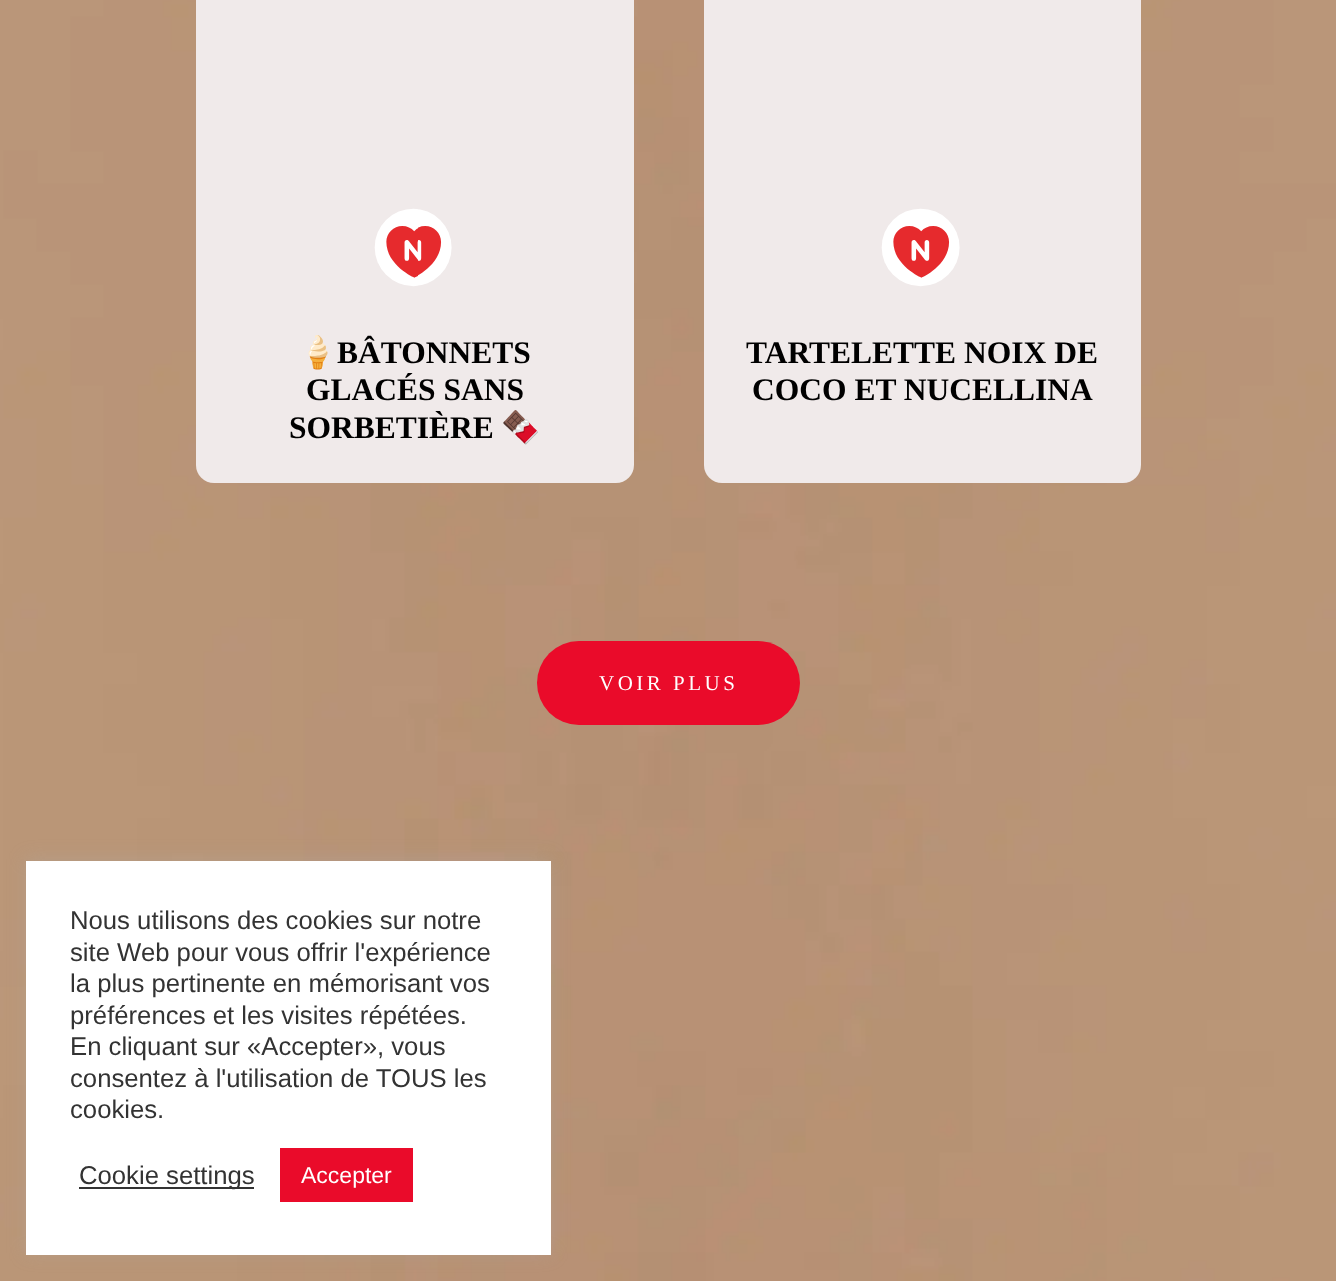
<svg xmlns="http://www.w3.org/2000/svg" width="1336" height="1281">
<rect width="100%" height="100%" fill="#fff"/>
<image x="0" y="0" width="1336" height="1281" href="media/1.png"/>
<rect x="196" y="-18" width="438" height="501" rx="18" fill="#f0eaea"/>
<image x="374" y="208" width="78" height="79" href="media/2.png"/>
<text x="298" y="363" style="font-family:Noto Color Emoji;font-size:31.5px;font-weight:bold;fill:#000">🍦</text>
<text x="337" y="363" style="font-family:Liberation Serif;font-size:31.5px;font-weight:bold;fill:#000">BÂTONNETS</text>
<text x="306" y="400" style="font-family:Liberation Serif;font-size:31.5px;font-weight:bold;fill:#000">GLACÉS SANS</text>
<text x="289" y="438" style="font-family:Liberation Serif;font-size:31.5px;font-weight:bold;fill:#000">SORBETIÈRE</text>
<text x="501" y="438" style="font-family:Noto Color Emoji;font-size:31.5px;font-weight:bold;fill:#000">🍫</text>
<rect x="704" y="-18" width="437" height="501" rx="18" fill="#f0eaea"/>
<image x="881" y="208" width="79" height="79" href="media/3.png"/>
<text x="746" y="363" style="font-family:Liberation Serif;font-size:31.5px;font-weight:bold;fill:#000">TARTELETTE NOIX DE</text>
<text x="752" y="400" style="font-family:Liberation Serif;font-size:31.5px;font-weight:bold;fill:#000">COCO ET NUCELLINA</text>
<rect x="537" y="641" width="263" height="84" rx="42" fill="#ea0b2a"/>
<text x="599" y="690" style="font-family:Liberation Serif;font-size:21px;letter-spacing:3.5px;fill:#fff">VOIR PLUS</text>
<rect x="26" y="859" width="525" height="394" fill="#acabab4d" filter="blur(9px)"/>
<rect x="26" y="861" width="525" height="394" fill="#fff"/>
<text x="70" y="929" style="font-family:Liberation Sans;font-size:25.7px;fill:#333">Nous utilisons des cookies sur notre</text>
<text x="70" y="961" style="font-family:Liberation Sans;font-size:25.7px;fill:#333">site Web pour vous offrir l'expérience</text>
<text x="70" y="992" style="font-family:Liberation Sans;font-size:25.7px;fill:#333">la plus pertinente en mémorisant vos</text>
<text x="70" y="1024" style="font-family:Liberation Sans;font-size:25.7px;fill:#333">préférences et les visites répétées.</text>
<text x="70" y="1055" style="font-family:Liberation Sans;font-size:25.7px;fill:#333">En cliquant sur «Accepter», vous</text>
<text x="70" y="1087" style="font-family:Liberation Sans;font-size:25.7px;fill:#333">consentez à l'utilisation de TOUS les</text>
<text x="70" y="1118" style="font-family:Liberation Sans;font-size:25.7px;fill:#333">cookies.</text>
<rect x="79" y="1187" width="175" height="2" fill="#333"/>
<text x="79" y="1184" style="font-family:Liberation Sans;font-size:25.7px;fill:#333">Cookie settings</text>
<rect x="280" y="1148" width="133" height="54" fill="#ea0b2a"/>
<text x="301" y="1183" style="font-family:Liberation Sans;font-size:23px;fill:#fff">Accepter</text>
</svg>
